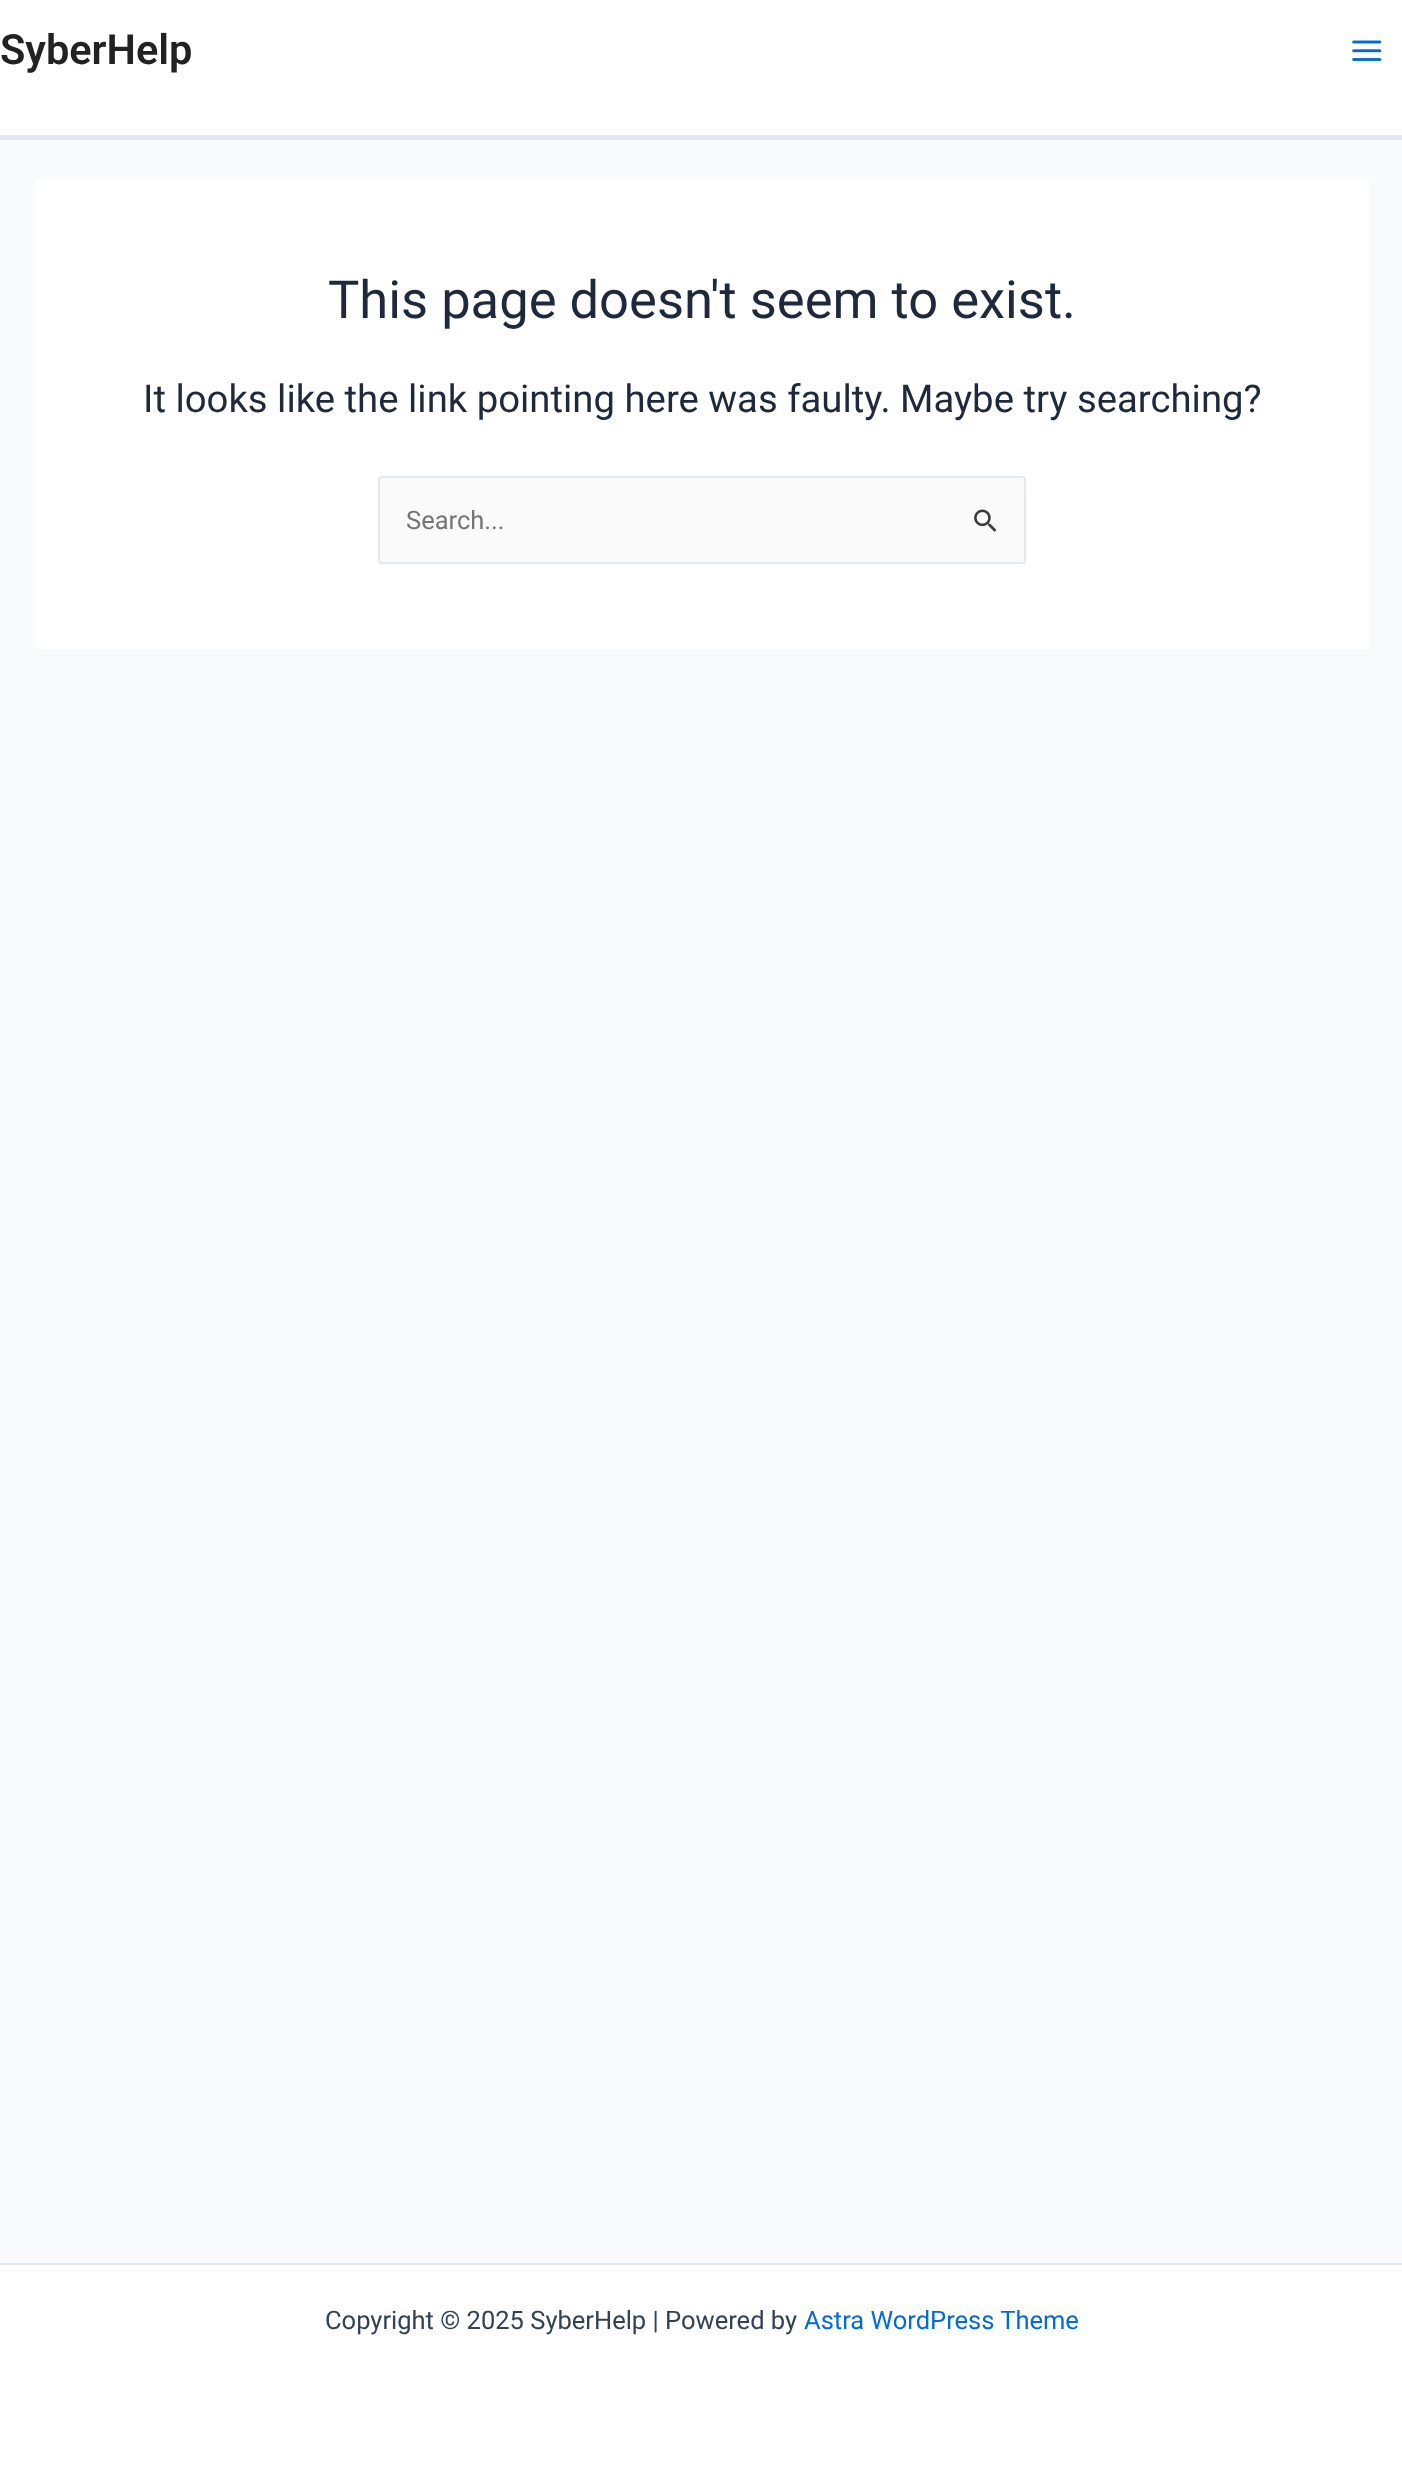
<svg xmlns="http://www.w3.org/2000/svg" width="1402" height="2473">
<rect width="100%" height="100%" fill="#f9fafb"/>
<rect width="1402" height="135" fill="#fff"/>
<rect y="135" width="1402" height="5" fill="#e2e8f0"/>
<text x="0" y="64" style="font-family:Roboto;font-size:41.5px;font-weight:600;fill:#222">SyberHelp</text>
<image x="1352" y="40" width="30" height="21" href="media/1.png"/>
<rect x="35" y="179" width="1334" height="470" fill="#fff"/>
<text x="328" y="318" style="font-family:Roboto;font-size:52.5px;fill:#1e293b">This page doesn't seem to exist.</text>
<text x="143" y="412" style="font-family:Roboto;font-size:38.3px;fill:#1e293b">It looks like the link pointing here was faulty. Maybe try searching?</text>
<rect x="379" y="477" width="646" height="86" rx="3" fill="#fafafa" stroke="#e2e8f0" stroke-width="2"/>
<text x="406" y="529" style="font-family:Roboto;font-size:25.5px;fill:#757575">Search...</text>
<image x="974" y="509" width="22" height="23" href="media/2.png"/>
<rect y="2265" width="1402" height="208" fill="#fff"/>
<rect y="2263" width="1402" height="2" fill="#e2e8f0"/>
<text x="325" y="2329" style="font-family:Roboto;font-size:25.5px;fill:#334155">Copyright © 2025 SyberHelp | Powered by</text>
<text x="804" y="2329" style="font-family:Roboto;font-size:25.5px;fill:#046bd2">Astra WordPress Theme</text>
</svg>
